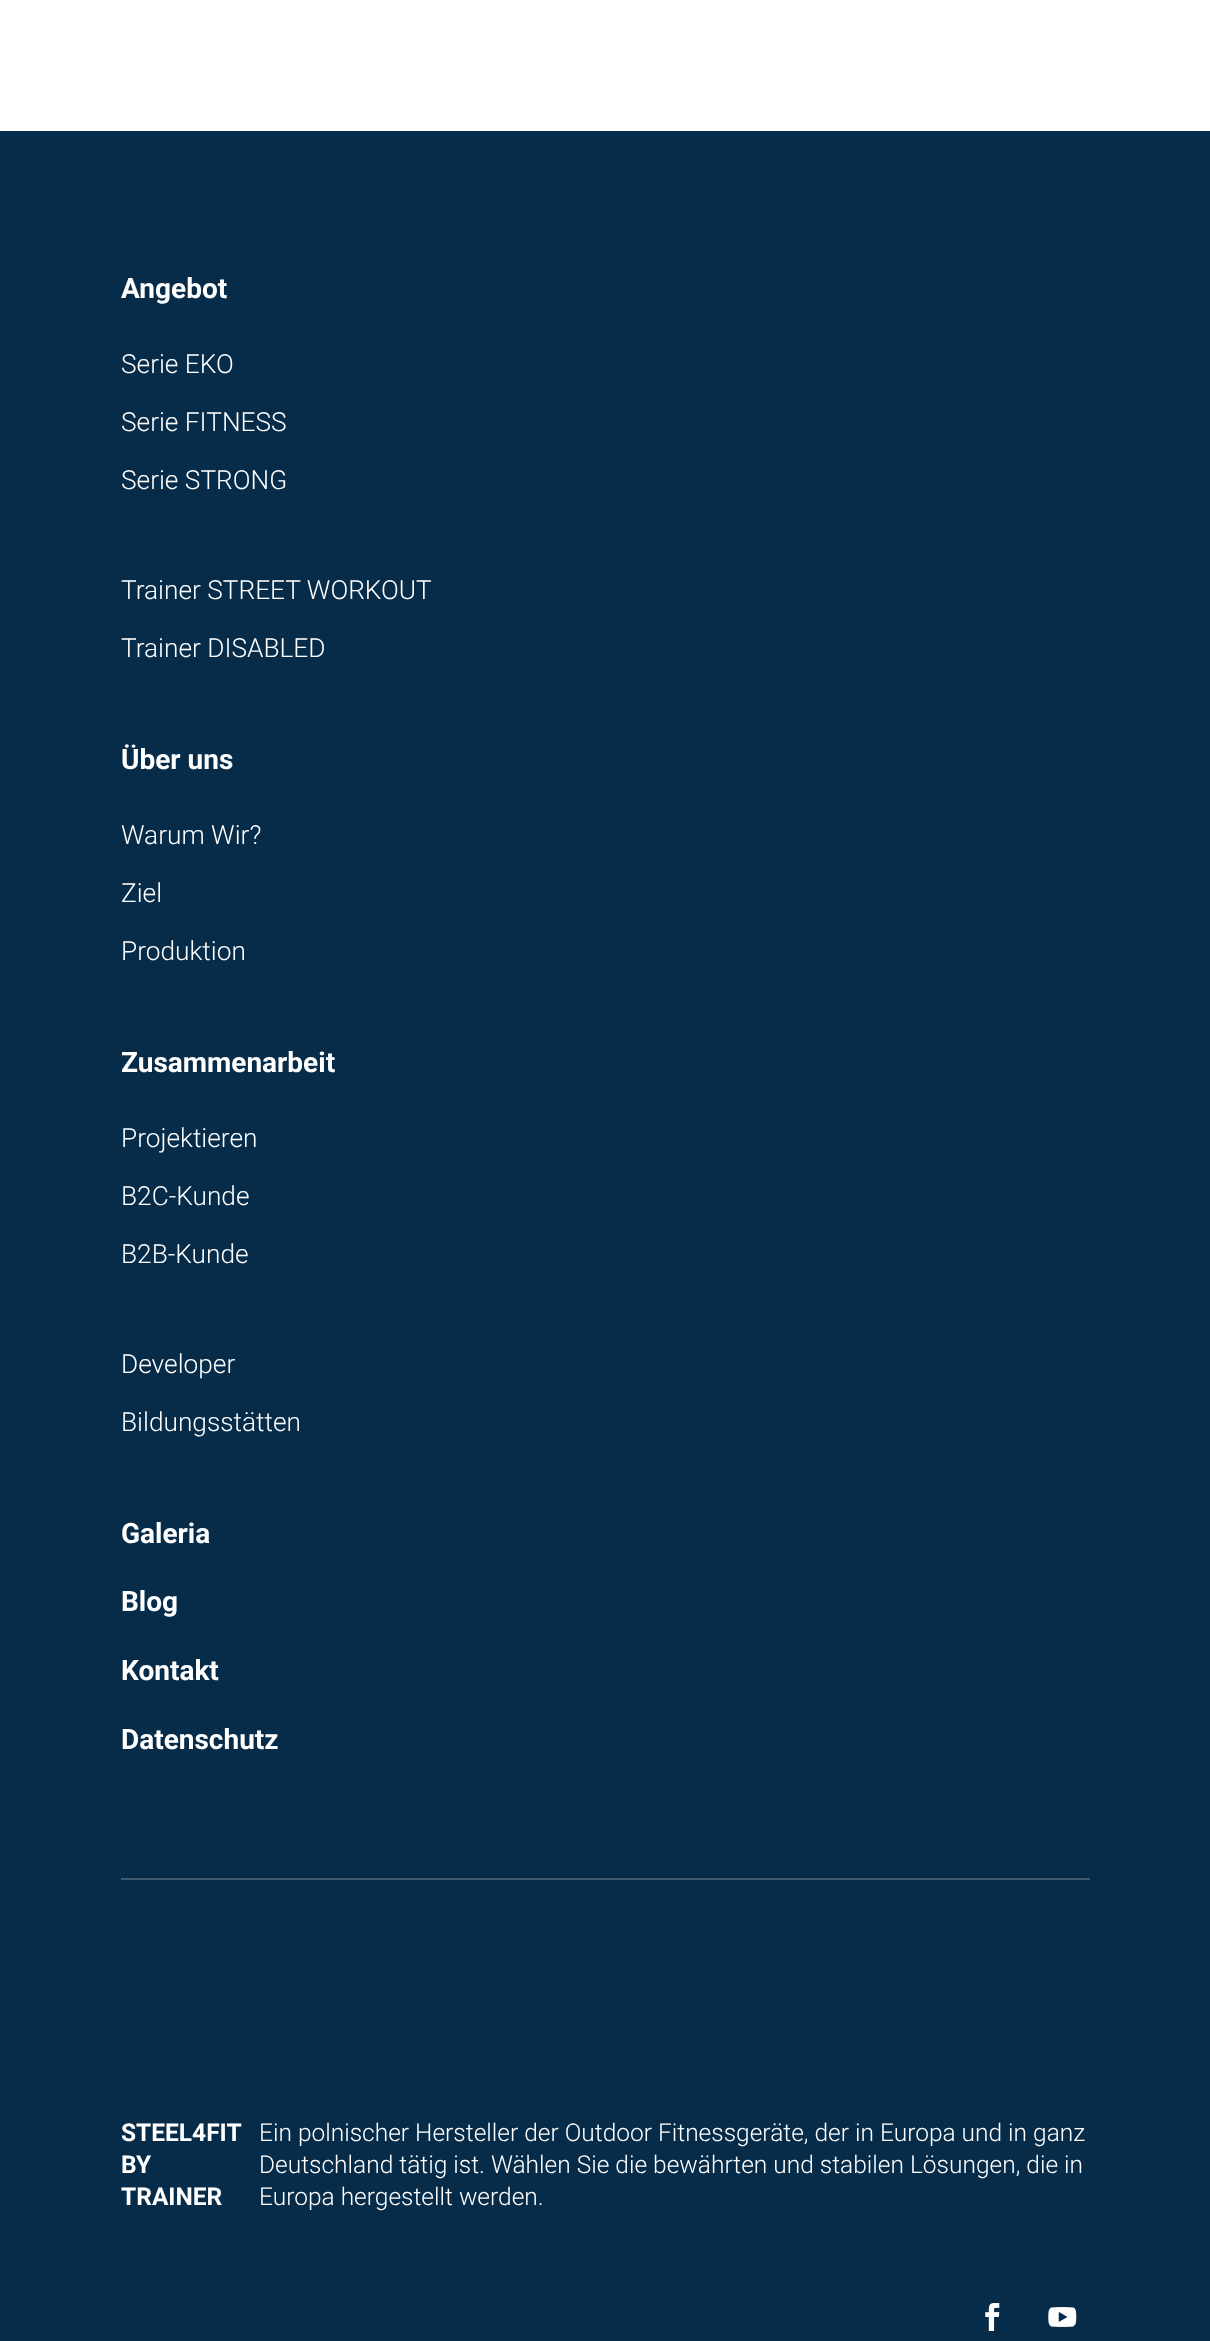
<svg xmlns="http://www.w3.org/2000/svg" width="1210" height="2341">
<rect width="100%" height="100%" fill="#fff"/>
<rect y="131" width="1210" height="2210" fill="#072c49"/>
<text x="121" y="298" style="font-family:Roboto;font-size:28px;font-weight:bold;fill:#fff">Angebot</text>
<text x="121" y="373" style="font-family:Roboto;font-size:26.25px;font-weight:300;fill:#fff">Serie EKO</text>
<text x="121" y="431" style="font-family:Roboto;font-size:26.25px;font-weight:300;fill:#fff">Serie FITNESS</text>
<text x="121" y="489" style="font-family:Roboto;font-size:26.25px;font-weight:300;fill:#fff">Serie STRONG</text>
<text x="121" y="599" style="font-family:Roboto;font-size:26.25px;font-weight:300;fill:#fff">Trainer STREET WORKOUT</text>
<text x="121" y="657" style="font-family:Roboto;font-size:26.25px;font-weight:300;fill:#fff">Trainer DISABLED</text>
<text x="121" y="769" style="font-family:Roboto;font-size:28px;font-weight:bold;fill:#fff">Über uns</text>
<text x="121" y="844" style="font-family:Roboto;font-size:26.25px;font-weight:300;fill:#fff">Warum Wir?</text>
<text x="121" y="902" style="font-family:Roboto;font-size:26.25px;font-weight:300;fill:#fff">Ziel</text>
<text x="121" y="960" style="font-family:Roboto;font-size:26.25px;font-weight:300;fill:#fff">Produktion</text>
<text x="121" y="1072" style="font-family:Roboto;font-size:28px;font-weight:bold;fill:#fff">Zusammenarbeit</text>
<text x="121" y="1147" style="font-family:Roboto;font-size:26.25px;font-weight:300;fill:#fff">Projektieren</text>
<text x="121" y="1205" style="font-family:Roboto;font-size:26.25px;font-weight:300;fill:#fff">B2C-Kunde</text>
<text x="121" y="1263" style="font-family:Roboto;font-size:26.25px;font-weight:300;fill:#fff">B2B-Kunde</text>
<text x="121" y="1373" style="font-family:Roboto;font-size:26.25px;font-weight:300;fill:#fff">Developer</text>
<text x="121" y="1431" style="font-family:Roboto;font-size:26.25px;font-weight:300;fill:#fff">Bildungsstätten</text>
<text x="121" y="1543" style="font-family:Roboto;font-size:28px;font-weight:bold;fill:#fff">Galeria</text>
<text x="121" y="1611" style="font-family:Roboto;font-size:28px;font-weight:bold;fill:#fff">Blog</text>
<text x="121" y="1680" style="font-family:Roboto;font-size:28px;font-weight:bold;fill:#fff">Kontakt</text>
<text x="121" y="1749" style="font-family:Roboto;font-size:28px;font-weight:bold;fill:#fff">Datenschutz</text>
<rect x="121" y="1878" width="969" height="2" fill="#3e5a71"/>
<text x="121" y="2141" style="font-family:Roboto;font-size:24.5px;font-weight:bold;fill:#fff">STEEL4FIT</text>
<text x="121" y="2173" style="font-family:Roboto;font-size:24.5px;font-weight:bold;fill:#fff">BY</text>
<text x="121" y="2205" style="font-family:Roboto;font-size:24.5px;font-weight:bold;fill:#fff">TRAINER</text>
<text x="259" y="2141" style="font-family:Roboto;font-size:24.5px;font-weight:300;fill:#fff">Ein polnischer Hersteller der Outdoor Fitnessgeräte, der in Europa und in ganz</text>
<text x="259" y="2173" style="font-family:Roboto;font-size:24.5px;font-weight:300;fill:#fff">Deutschland tätig ist. Wählen Sie die bewährten und stabilen Lösungen, die in</text>
<text x="259" y="2205" style="font-family:Roboto;font-size:24.5px;font-weight:300;fill:#fff">Europa hergestellt werden.</text>
<image x="985" y="2303" width="15" height="28" href="media/1.png"/>
<image x="1048" y="2307" width="29" height="20" href="media/2.png"/>
</svg>
